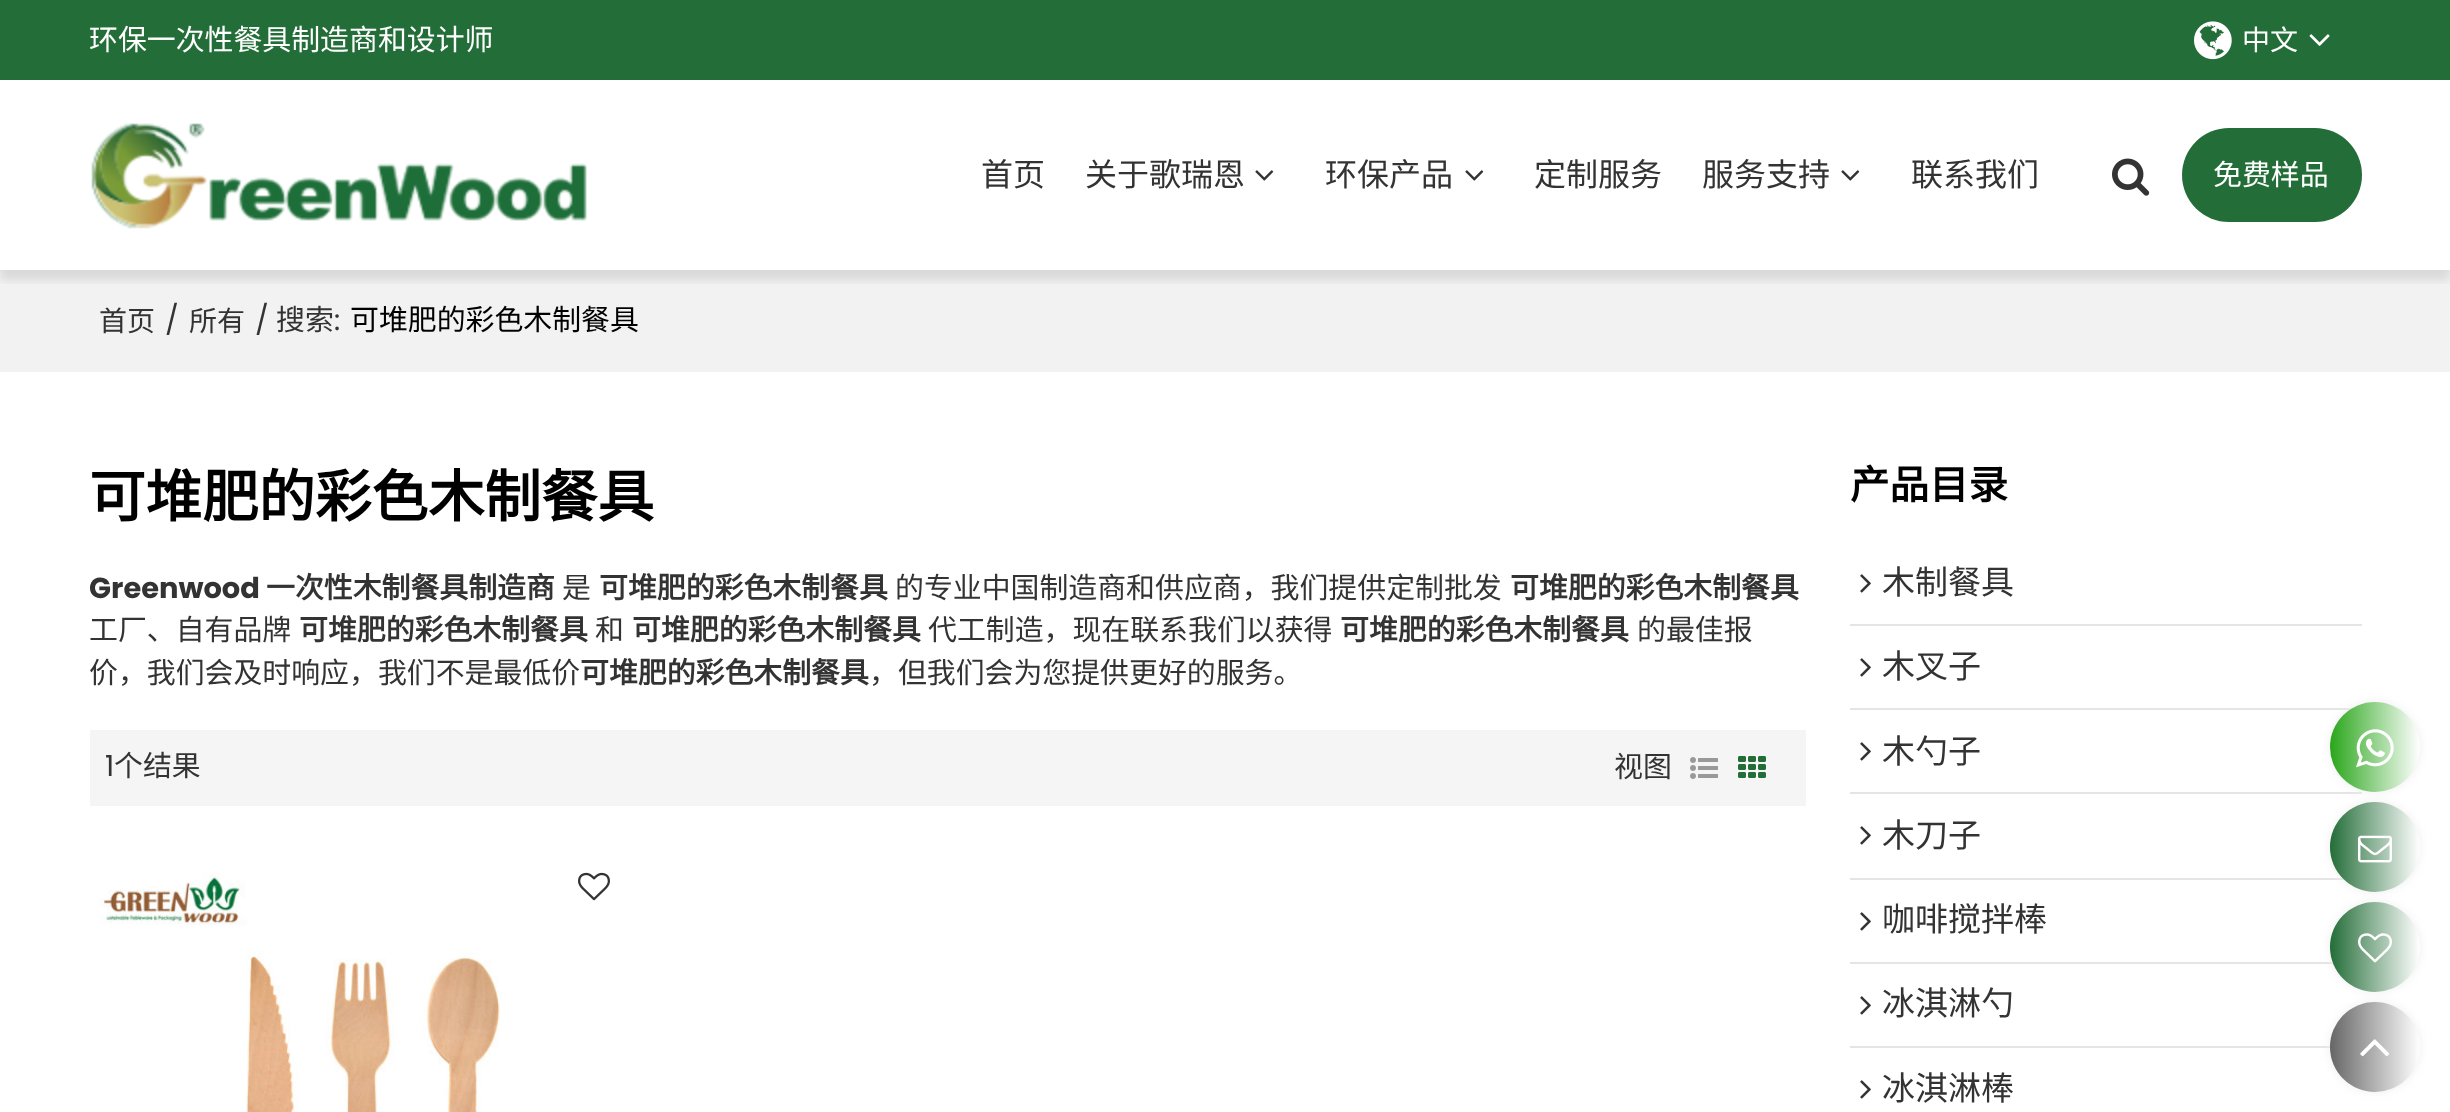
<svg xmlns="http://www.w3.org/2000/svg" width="2450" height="1112">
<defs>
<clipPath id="clip1"><rect x="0" y="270" width="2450" height="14"/></clipPath>
<linearGradient id="g1" gradientUnits="userSpaceOnUse" x1="2330" y1="747" x2="2420" y2="747"><stop offset="0" stop-color="#29a61a"/><stop offset="1" stop-color="#fff"/></linearGradient>
<linearGradient id="g2" gradientUnits="userSpaceOnUse" x1="2330" y1="847" x2="2420" y2="847"><stop offset="0" stop-color="#236d38"/><stop offset="1" stop-color="#fff"/></linearGradient>
<linearGradient id="g3" gradientUnits="userSpaceOnUse" x1="2330" y1="947" x2="2420" y2="947"><stop offset="0" stop-color="#236d38"/><stop offset="1" stop-color="#fff"/></linearGradient>
<linearGradient id="g4" gradientUnits="userSpaceOnUse" x1="2330" y1="1047" x2="2420" y2="1047"><stop offset="0" stop-color="#666"/><stop offset="1" stop-color="#fff"/></linearGradient>
</defs>
<rect width="100%" height="100%" fill="#fff"/>
<rect width="2450" height="80" fill="#236d38"/>
<text x="89" y="50" style="font-family:Noto Sans CJK SC;font-size:28.9px;fill:#fff">环保一次性餐具制造商和设计师</text>
<image x="2194" y="21" width="38" height="39" href="media/1.png"/>
<text x="2242" y="50" style="font-family:Noto Sans CJK SC;font-size:28px;fill:#fff">中文</text>
<image x="2309" y="34" width="21" height="12" href="media/2.png"/>
<rect y="270" width="2450" height="102" fill="#f2f2f2"/>
<g clip-path="url(#clip1)">
<rect y="90" width="2450" height="190" fill="#0000001a" filter="blur(5px)"/>
</g>
<image x="91" y="123" width="496" height="106" href="media/3.png"/>
<text x="981" y="186" style="font-family:Noto Sans CJK SC;font-size:32px;fill:#333">首页</text>
<text x="1085" y="186" style="font-family:Noto Sans CJK SC;font-size:32px;fill:#333">关于歌瑞恩</text>
<image x="1255" y="170" width="19" height="11" href="media/4.png"/>
<text x="1325" y="186" style="font-family:Noto Sans CJK SC;font-size:32px;fill:#333">环保产品</text>
<image x="1465" y="170" width="19" height="11" href="media/4.png"/>
<text x="1534" y="186" style="font-family:Noto Sans CJK SC;font-size:32px;fill:#333">定制服务</text>
<text x="1702" y="186" style="font-family:Noto Sans CJK SC;font-size:32px;fill:#333">服务支持</text>
<image x="1841" y="170" width="19" height="11" href="media/4.png"/>
<text x="1911" y="186" style="font-family:Noto Sans CJK SC;font-size:32px;fill:#333">联系我们</text>
<image x="2112" y="158" width="38" height="38" href="media/5.png"/>
<rect x="2182" y="128" width="180" height="94" rx="47" fill="#236d38"/>
<text x="2213" y="185" style="font-family:Noto Sans CJK SC;font-size:28.9px;fill:#fff">免费样品</text>
<text x="99" y="331" style="font-family:Noto Sans CJK SC;font-size:28px;fill:#333">首页</text>
<text x="165" y="330" style="font-family:Poppins;font-size:28.9px;fill:#333">/</text>
<text x="189" y="331" style="font-family:Noto Sans CJK SC;font-size:28px;fill:#333">所有</text>
<text x="255" y="330" style="font-family:Poppins;font-size:28.9px;fill:#333">/</text>
<text x="276" y="330" style="font-family:Noto Sans CJK SC;font-size:28.9px;fill:#333">搜索</text>
<text x="334" y="330" style="font-family:Poppins;font-size:28.9px;fill:#333">:</text>
<text x="350" y="330" style="font-family:Noto Sans CJK SC;font-size:28.9px;fill:#000">可堆肥的彩色木制餐具</text>
<text x="89" y="517" style="font-family:Noto Sans CJK SC;font-size:56.5px;font-weight:bold;fill:#000">可堆肥的彩色木制餐具</text>
<text x="89" y="598" style="font-family:Poppins;font-size:28.9px;font-weight:bold;fill:#333">Greenwood</text>
<text x="266" y="598" style="font-family:Noto Sans CJK SC;font-size:28.9px;font-weight:bold;fill:#333">一次性木制餐具制造商</text>
<text x="562" y="598" style="font-family:Noto Sans CJK SC;font-size:28.9px;fill:#333">是</text>
<text x="599" y="598" style="font-family:Noto Sans CJK SC;font-size:28.9px;font-weight:bold;fill:#333">可堆肥的彩色木制餐具</text>
<text x="895" y="598" style="font-family:Noto Sans CJK SC;font-size:28.9px;fill:#333">的专业中国制造商和供应商，我们提供定制批发</text>
<text x="1510" y="598" style="font-family:Noto Sans CJK SC;font-size:28.9px;font-weight:bold;fill:#333">可堆肥的彩色木制餐具</text>
<text x="89" y="640" style="font-family:Noto Sans CJK SC;font-size:28.9px;fill:#333">工厂、自有品牌</text>
<text x="299" y="640" style="font-family:Noto Sans CJK SC;font-size:28.9px;font-weight:bold;fill:#333">可堆肥的彩色木制餐具</text>
<text x="595" y="640" style="font-family:Noto Sans CJK SC;font-size:28.9px;fill:#333">和</text>
<text x="632" y="640" style="font-family:Noto Sans CJK SC;font-size:28.9px;font-weight:bold;fill:#333">可堆肥的彩色木制餐具</text>
<text x="928" y="640" style="font-family:Noto Sans CJK SC;font-size:28.9px;fill:#333">代工制造，现在联系我们以获得</text>
<text x="1340" y="640" style="font-family:Noto Sans CJK SC;font-size:28.9px;font-weight:bold;fill:#333">可堆肥的彩色木制餐具</text>
<text x="1637" y="640" style="font-family:Noto Sans CJK SC;font-size:28.9px;fill:#333">的最佳报</text>
<text x="89" y="683" style="font-family:Noto Sans CJK SC;font-size:28.9px;fill:#333">价，我们会及时响应，我们不是最低价</text>
<text x="580" y="683" style="font-family:Noto Sans CJK SC;font-size:28.9px;font-weight:bold;fill:#333">可堆肥的彩色木制餐具</text>
<text x="869" y="683" style="font-family:Noto Sans CJK SC;font-size:28.9px;fill:#333">，但我们会为您提供更好的服务。</text>
<rect x="90" y="730" width="1716" height="76" fill="#f5f5f5"/>
<text x="105" y="776" style="font-family:Poppins;font-size:28.9px;fill:#333">1</text>
<text x="114" y="776" style="font-family:Noto Sans CJK SC;font-size:28.9px;fill:#333">个结果</text>
<text x="1614" y="777" style="font-family:Noto Sans CJK SC;font-size:28.9px;fill:#333">视图</text>
<image x="1690" y="757" width="28" height="22" href="media/6.png"/>
<image x="1738" y="756" width="28" height="22" href="media/7.png"/>
<image x="99" y="873" width="402" height="239" href="media/8.png"/>
<image x="578" y="872" width="32" height="29" href="media/9.png"/>
<text x="1850" y="499" style="font-family:Noto Sans CJK SC;font-size:39.5px;font-weight:bold;fill:#000">产品目录</text>
<rect x="1850" y="624" width="512" height="2" fill="#e5e5e5"/>
<image x="1860" y="574" width="11" height="19" href="media/10.png"/>
<text x="1882" y="594" style="font-family:Noto Sans CJK SC;font-size:33px;fill:#333">木制餐具</text>
<rect x="1850" y="708" width="503" height="2" fill="#e5e5e5"/>
<image x="1860" y="658" width="11" height="19" href="media/10.png"/>
<text x="1882" y="678" style="font-family:Noto Sans CJK SC;font-size:33px;fill:#333">木叉子</text>
<rect x="1850" y="792" width="512" height="2" fill="#e5e5e5"/>
<image x="1860" y="742" width="11" height="19" href="media/10.png"/>
<text x="1882" y="763" style="font-family:Noto Sans CJK SC;font-size:33px;fill:#333">木勺子</text>
<rect x="1850" y="878" width="495" height="2" fill="#e5e5e5"/>
<image x="1860" y="826" width="11" height="19" href="media/10.png"/>
<text x="1882" y="847" style="font-family:Noto Sans CJK SC;font-size:33px;fill:#333">木刀子</text>
<rect x="1850" y="962" width="484" height="2" fill="#e5e5e5"/>
<image x="1860" y="912" width="11" height="19" href="media/10.png"/>
<text x="1882" y="931" style="font-family:Noto Sans CJK SC;font-size:33px;fill:#333">咖啡搅拌棒</text>
<rect x="1850" y="1046" width="481" height="2" fill="#e5e5e5"/>
<image x="1860" y="996" width="11" height="19" href="media/10.png"/>
<text x="1882" y="1015" style="font-family:Noto Sans CJK SC;font-size:33px;fill:#333">冰淇淋勺</text>
<image x="1860" y="1080" width="11" height="19" href="media/10.png"/>
<text x="1882" y="1100" style="font-family:Noto Sans CJK SC;font-size:33px;fill:#333">冰淇淋棒</text>
<rect x="2330" y="702" width="90" height="90" rx="45" fill="#eee" filter="blur(5px)"/>
<circle cx="2375" cy="747" r="45" fill="url(#g1)"/>
<image x="2356" y="729" width="38" height="39" href="media/11.png"/>
<rect x="2330" y="802" width="90" height="90" rx="45" fill="#eee" filter="blur(5px)"/>
<circle cx="2375" cy="847" r="45" fill="url(#g2)"/>
<image x="2358" y="835" width="34" height="28" href="media/12.png"/>
<rect x="2330" y="902" width="90" height="90" rx="45" fill="#eee" filter="blur(5px)"/>
<circle cx="2375" cy="947" r="45" fill="url(#g3)"/>
<image x="2358" y="933" width="34" height="30" href="media/13.png"/>
<rect x="2330" y="1002" width="90" height="90" rx="45" fill="#eee" filter="blur(5px)"/>
<circle cx="2375" cy="1047" r="45" fill="url(#g4)"/>
<image x="2360" y="1039" width="30" height="18" href="media/14.png"/>
</svg>
